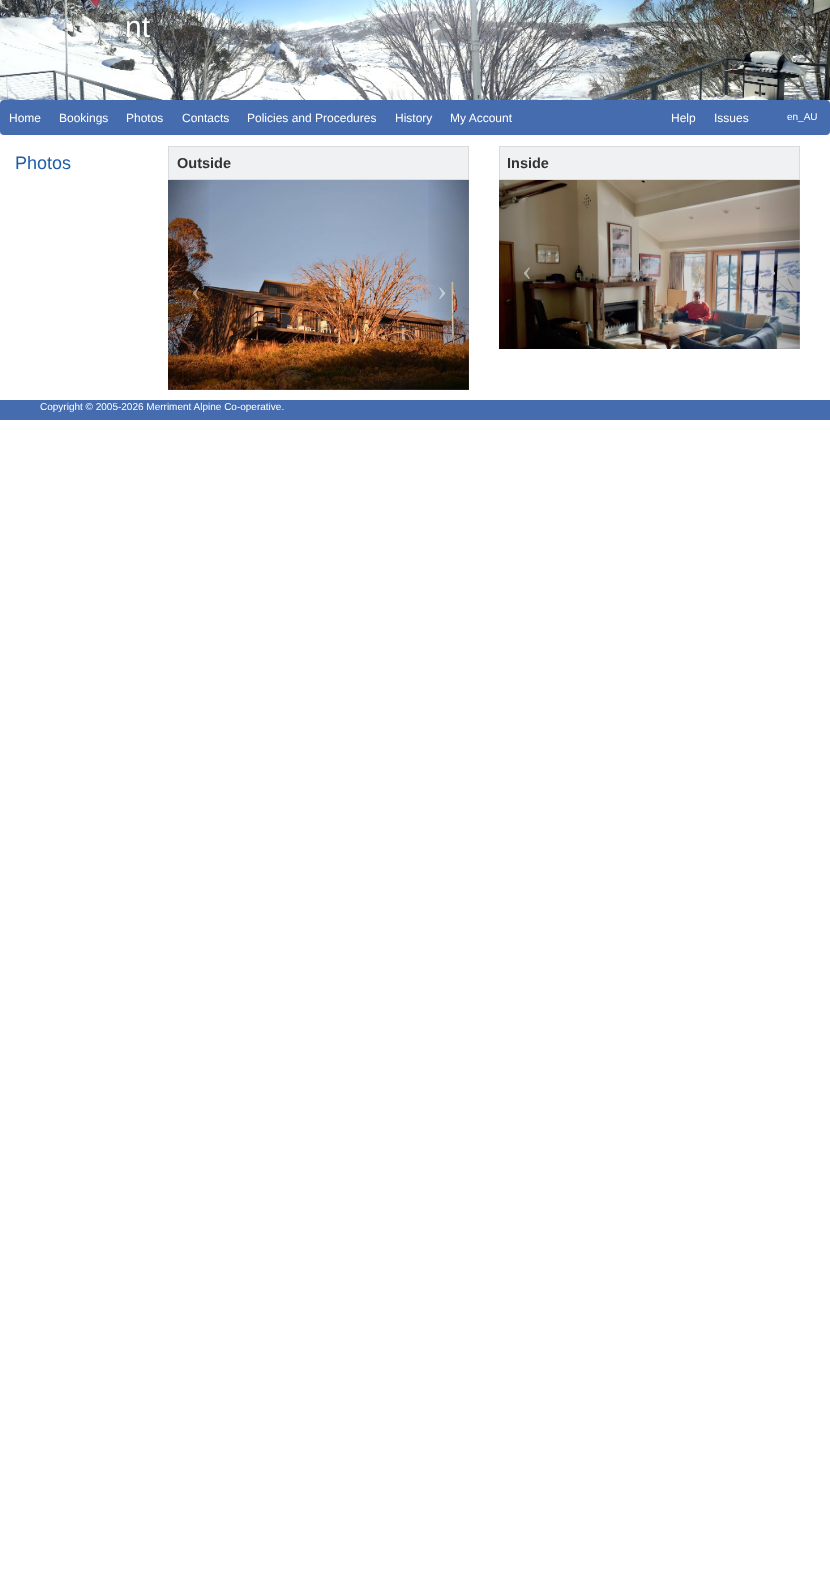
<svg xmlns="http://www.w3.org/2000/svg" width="830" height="1588">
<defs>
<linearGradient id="g1" gradientUnits="userSpaceOnUse" x1="168" y1="285" x2="213" y2="285"><stop offset="0" stop-color="#000" stop-opacity="0.25"/><stop offset="1" stop-color="#000" stop-opacity="0"/></linearGradient>
<linearGradient id="g2" gradientUnits="userSpaceOnUse" x1="424" y1="285" x2="469" y2="285"><stop offset="0" stop-color="#000" stop-opacity="0"/><stop offset="1" stop-color="#000" stop-opacity="0.25"/></linearGradient>
<linearGradient id="g3" gradientUnits="userSpaceOnUse" x1="755" y1="265" x2="800" y2="265"><stop offset="0" stop-color="#000" stop-opacity="0"/><stop offset="1" stop-color="#000" stop-opacity="0.25"/></linearGradient>
</defs>
<rect width="100%" height="100%" fill="#fff"/>
<image x="0" y="0" width="830" height="100" href="media/1.png"/>
<text x="125" y="37" style="font-family:Liberation Sans;font-size:30px;fill:#fff">nt</text>
<rect y="100" width="830" height="35" rx="4" fill="#456caf"/>
<text x="9" y="122" style="font-family:Liberation Sans;font-size:12px;fill:#fff">Home</text>
<text x="59" y="122" style="font-family:Liberation Sans;font-size:12px;fill:#fff">Bookings</text>
<text x="126" y="122" style="font-family:Liberation Sans;font-size:12px;fill:#fff">Photos</text>
<text x="182" y="122" style="font-family:Liberation Sans;font-size:12px;fill:#fff">Contacts</text>
<text x="247" y="122" style="font-family:Liberation Sans;font-size:12px;fill:#fff">Policies and Procedures</text>
<text x="395" y="122" style="font-family:Liberation Sans;font-size:12px;fill:#fff">History</text>
<text x="450" y="122" style="font-family:Liberation Sans;font-size:12px;fill:#fff">My Account</text>
<text x="671" y="122" style="font-family:Liberation Sans;font-size:12px;fill:#fff">Help</text>
<text x="714" y="122" style="font-family:Liberation Sans;font-size:12px;fill:#fff">Issues</text>
<text x="787" y="120" style="font-family:Liberation Sans;font-size:10px;fill:#fff">en_AU</text>
<text x="15" y="169" style="font-family:Liberation Sans;font-size:18px;fill:#1f5da8">Photos</text>
<rect x="168.5" y="146.5" width="300" height="33" fill="#f0f1f3" stroke="#dadbdd"/>
<text x="177" y="168" style="font-family:Liberation Sans;font-size:14.5px;font-weight:bold;fill:#333">Outside</text>
<image x="168" y="180" width="301" height="210" href="media/2.png"/>
<rect x="168" y="180" width="41" height="210" fill="url(#g1)"/>
<text x="191" y="300" style="font-family:Liberation Serif;font-size:30px;fill:#ad9b8c">‹</text>
<rect x="428" y="180" width="41" height="210" fill="url(#g2)"/>
<text x="437" y="300" style="font-family:Liberation Serif;font-size:30px;fill:#c5cdd8">›</text>
<rect x="499.5" y="146.5" width="300" height="33" fill="#f0f1f3" stroke="#dadbdd"/>
<text x="507" y="168" style="font-family:Liberation Sans;font-size:14.5px;font-weight:bold;fill:#333">Inside</text>
<image x="499" y="180" width="301" height="169" href="media/3.png"/>
<text x="522" y="280" style="font-family:Liberation Serif;font-size:30px;fill:#b6b0a6">‹</text>
<rect x="759" y="180" width="41" height="169" fill="url(#g3)"/>
<text x="767" y="280" style="font-family:Liberation Serif;font-size:30px;fill:#c3c4ca">›</text>
<rect y="400" width="830" height="20" fill="#456caf"/>
<text x="40" y="410" style="font-family:Liberation Sans;font-size:10px;fill:#fff">Copyright © 2005-2026 Merriment Alpine Co-operative.</text>
</svg>
